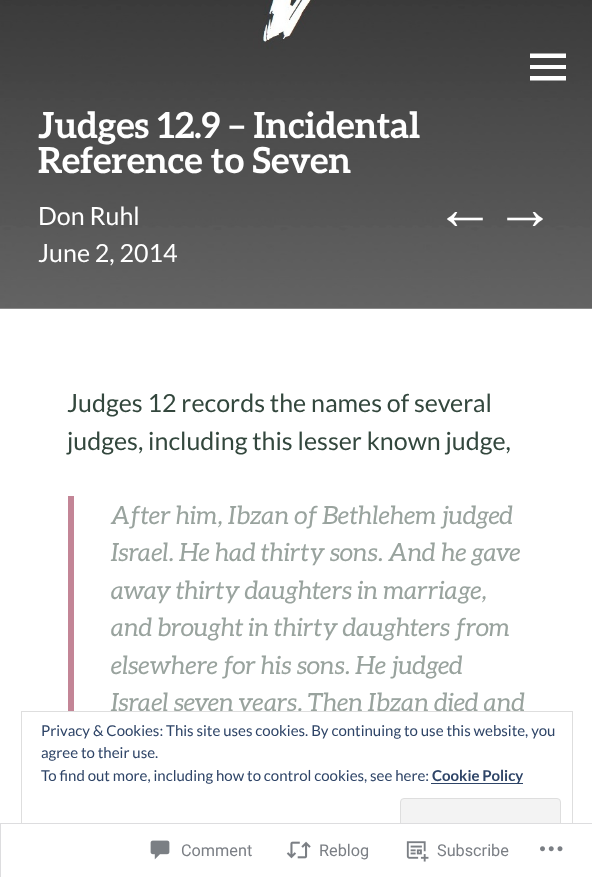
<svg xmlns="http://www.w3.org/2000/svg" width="592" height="877">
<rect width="100%" height="100%" fill="#fff"/>
<image x="0" y="0" width="592" height="309" href="media/1.png"/>
<text x="38" y="138" style="font-family:Aleo;font-size:36px;font-weight:bold;fill:#fff">Judges 12.9 – Incidental</text>
<text x="38" y="173" style="font-family:Aleo;font-size:36px;font-weight:bold;fill:#fff">Reference to Seven</text>
<text x="38" y="225" style="font-family:Lato;font-size:25px;fill:#fff">Don Ruhl</text>
<text x="38" y="262" style="font-family:Lato;font-size:25px;fill:#fff">June 2, 2014</text>
<text x="435" y="229" style="font-family:Liberation Sans;font-size:60px;font-weight:bold;fill:#fff">←→</text>
<path d="M530 80.5v-4.5h36v4.5zm0-27h36v4.5h-36zm0 15.5v-4h36v4z" fill="#fff"/>
<text x="67" y="412" style="font-family:Lato;font-size:25px;fill:#33473d">Judges 12 records the names of several</text>
<text x="67" y="450" style="font-family:Lato;font-size:25px;fill:#33473d">judges, including this lesser known judge,</text>
<rect x="68" y="496" width="6" height="215" fill="#c38596"/>
<text x="111" y="524" style="font-family:Aleo;font-size:25px;font-style:italic;fill:#99a39e">After him, Ibzan of Bethlehem judged</text>
<text x="111" y="561" style="font-family:Aleo;font-size:25px;font-style:italic;fill:#99a39e">Israel. He had thirty sons. And he gave</text>
<text x="111" y="599" style="font-family:Aleo;font-size:25px;font-style:italic;fill:#99a39e">away thirty daughters in marriage,</text>
<text x="111" y="636" style="font-family:Aleo;font-size:25px;font-style:italic;fill:#99a39e">and brought in thirty daughters from</text>
<text x="111" y="674" style="font-family:Aleo;font-size:25px;font-style:italic;fill:#99a39e">elsewhere for his sons. He judged</text>
<text x="111" y="711" style="font-family:Aleo;font-size:25px;font-style:italic;fill:#99a39e">Israel seven years. Then Ibzan died and</text>
<rect x="240" y="712" width="5" height="4" fill="#fff"/>
<rect x="21.5" y="711.5" width="551" height="146" fill="none" stroke="#dedede"/>
<text x="41" y="736" style="font-family:Lato;font-size:15px;fill:#2e4467">Privacy &amp; Cookies: This site uses cookies. By continuing to use this website, you</text>
<text x="41" y="758" style="font-family:Lato;font-size:15px;fill:#2e4467">agree to their use.</text>
<text x="41" y="781" style="font-family:Lato;font-size:15px;fill:#2e4467">To find out more, including how to control cookies, see here:</text>
<rect x="431" y="783" width="92" height="1" fill="#2e4467"/>
<text x="432" y="781" style="font-family:Lato;font-size:15px;font-weight:bold;fill:#2e4467">Cookie Policy</text>
<rect x="400.5" y="798.5" width="160" height="47" rx="3.5" fill="#f3f3f3" stroke="#dedede"/>
<rect x="21" y="823" width="552" height="35" fill="#fffffffa"/>
<rect x="0.5" y="823.5" width="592" height="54" fill="none" stroke="#dcdcdefa"/>
<image x="150" y="840" width="20" height="20" href="media/2.png"/>
<text x="181" y="856" style="font-family:Roboto;font-size:16.25px;fill:#7b7f85">Comment</text>
<image x="286" y="841" width="25" height="18" href="media/3.png"/>
<text x="319" y="856" style="font-family:Roboto;font-size:16.25px;fill:#7b7f85">Reblog</text>
<image x="406" y="841" width="23" height="21" href="media/4.png"/>
<text x="437" y="856" style="font-family:Roboto;font-size:16.25px;fill:#7b7f85">Subscribe</text>
<image x="540" y="846" width="23" height="6" href="media/5.png"/>
</svg>
